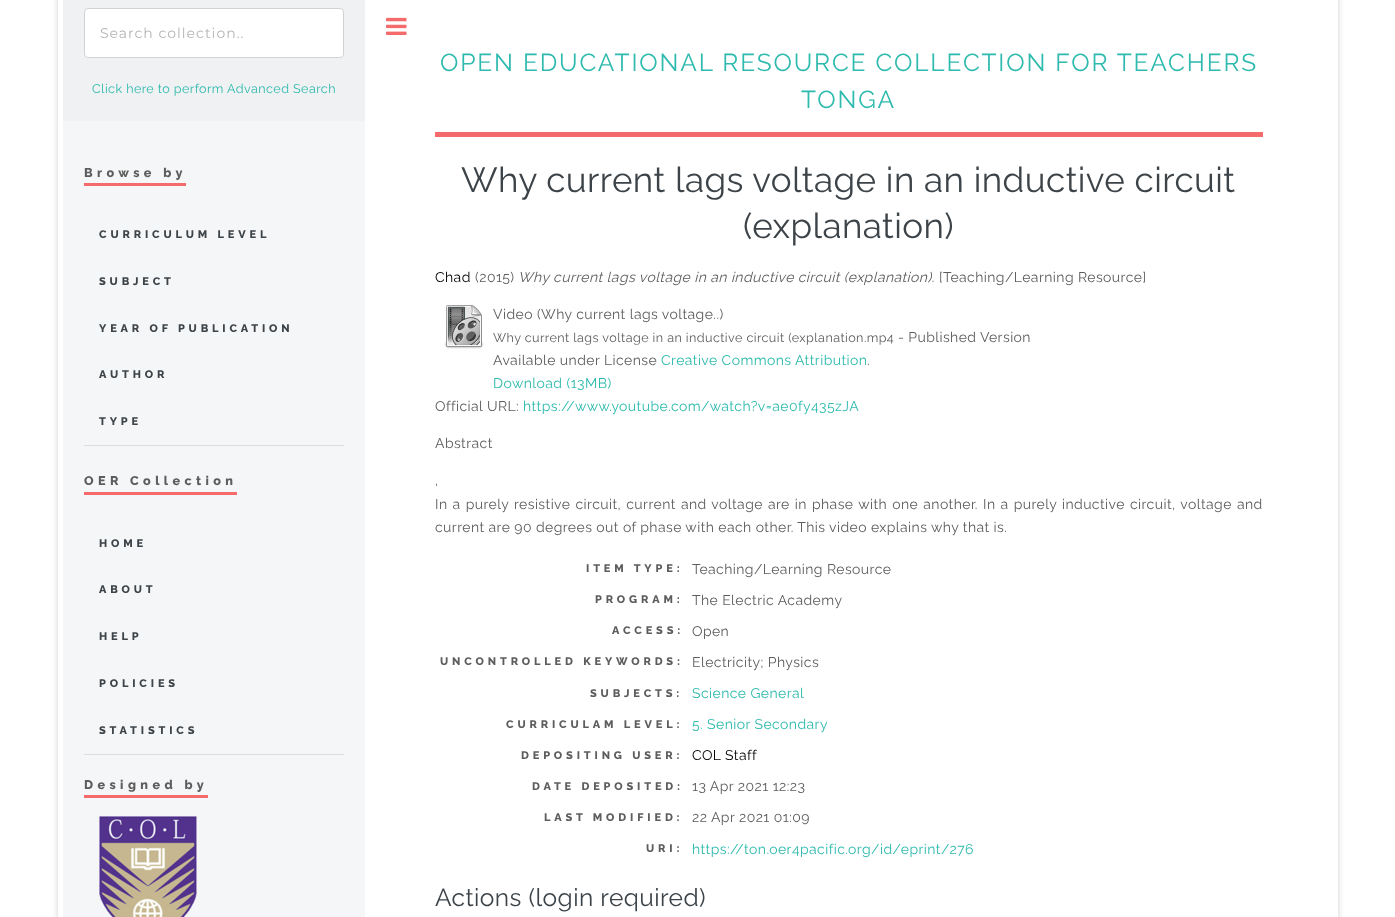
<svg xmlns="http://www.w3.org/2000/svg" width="1395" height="917">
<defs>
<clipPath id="clip1"><path d="M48 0h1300v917h-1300zm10-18h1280v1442h-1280z" clip-rule="evenodd"/></clipPath>
</defs>
<rect width="100%" height="100%" fill="#fff"/>
<g clip-path="url(#clip1)">
<rect x="58" y="-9" width="1280" height="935" fill="#6464644d" filter="blur(3px)"/>
</g>
<rect x="63" y="121" width="302" height="796" fill="#f5f6f7"/>
<rect x="63" width="302" height="121" fill="#eff1f2"/>
<rect x="84.5" y="8.5" width="259" height="49" rx="3.5" fill="#fff" stroke="#d2d2d2"/>
<text x="100" y="38" style="font-family:Montserrat;font-size:14px;letter-spacing:1px;fill:#b5b5b5">Search collection..</text>
<text x="92" y="93" style="font-family:Raleway;font-size:12.6px;letter-spacing:0.42px;fill:#2ebaae">Click here to perform Advanced Search</text>
<rect x="84" y="183" width="102" height="3" fill="#f56a6a"/>
<text x="84" y="177" style="font-family:Raleway;font-size:12.6px;font-weight:800;letter-spacing:4.4px;fill:#5d5d5d">Browse by</text>
<text x="99" y="238" style="font-family:Raleway;font-size:11px;font-weight:800;letter-spacing:3.85px;fill:#3d4449">CURRICULUM LEVEL</text>
<text x="99" y="285" style="font-family:Raleway;font-size:11px;font-weight:800;letter-spacing:3.85px;fill:#3d4449">SUBJECT</text>
<text x="99" y="332" style="font-family:Raleway;font-size:11px;font-weight:800;letter-spacing:3.85px;fill:#3d4449">YEAR OF PUBLICATION</text>
<text x="99" y="378" style="font-family:Raleway;font-size:11px;font-weight:800;letter-spacing:3.85px;fill:#3d4449">AUTHOR</text>
<rect x="84" y="445" width="260" height="1" fill="#dbdfe1"/>
<text x="99" y="425" style="font-family:Raleway;font-size:11px;font-weight:800;letter-spacing:3.85px;fill:#3d4449">TYPE</text>
<rect x="84" y="492" width="153" height="3" fill="#f56a6a"/>
<text x="84" y="485" style="font-family:Raleway;font-size:12.6px;font-weight:800;letter-spacing:4.4px;fill:#5d5d5d">OER Collection</text>
<text x="99" y="547" style="font-family:Raleway;font-size:11px;font-weight:800;letter-spacing:3.85px;fill:#3d4449">HOME</text>
<text x="99" y="593" style="font-family:Raleway;font-size:11px;font-weight:800;letter-spacing:3.85px;fill:#3d4449">ABOUT</text>
<text x="99" y="640" style="font-family:Raleway;font-size:11px;font-weight:800;letter-spacing:3.85px;fill:#3d4449">HELP</text>
<text x="99" y="687" style="font-family:Raleway;font-size:11px;font-weight:800;letter-spacing:3.85px;fill:#3d4449">POLICIES</text>
<rect x="84" y="754" width="260" height="1" fill="#dbdfe1"/>
<text x="99" y="734" style="font-family:Raleway;font-size:11px;font-weight:800;letter-spacing:3.85px;fill:#3d4449">STATISTICS</text>
<rect x="84" y="795" width="124" height="3" fill="#f56a6a"/>
<text x="84" y="789" style="font-family:Raleway;font-size:12.6px;font-weight:800;letter-spacing:4.4px;fill:#5d5d5d">Designed by</text>
<image x="99" y="816" width="98" height="101" href="media/1.png"/>
<image x="386" y="17" width="21" height="18" href="media/2.png"/>
<rect x="435" y="132" width="828" height="5" fill="#f56a6a"/>
<text x="440" y="71" style="font-family:Raleway;font-size:24.5px;letter-spacing:1.85px;fill:#2ebaae">OPEN EDUCATIONAL RESOURCE COLLECTION FOR TEACHERS</text>
<text x="801" y="108" style="font-family:Raleway;font-size:24.5px;letter-spacing:1.85px;fill:#2ebaae">TONGA</text>
<text x="461" y="192" style="font-family:Raleway;font-size:35px;letter-spacing:0.42px;fill:#3d4449">Why current lags voltage in an inductive circuit</text>
<text x="743" y="238" style="font-family:Raleway;font-size:35px;letter-spacing:0.42px;fill:#3d4449">(explanation)</text>
<text x="435" y="282" style="font-family:Raleway;font-size:14px;letter-spacing:0.42px;fill:#000">Chad</text>
<text x="475" y="282" style="font-family:Raleway;font-size:14px;letter-spacing:0.42px;fill:#5d5d5d">(2015)</text>
<text x="518" y="282" style="font-family:Raleway;font-size:14px;font-style:italic;letter-spacing:0.42px;fill:#5d5d5d">Why current lags voltage in an inductive circuit (explanation).</text>
<text x="939" y="282" style="font-family:Raleway;font-size:14px;letter-spacing:0.42px;fill:#5d5d5d">[Teaching/Learning Resource]</text>
<image x="444" y="305" width="40" height="44" href="media/3.png"/>
<text x="493" y="319" style="font-family:Raleway;font-size:14px;letter-spacing:0.42px;fill:#5d5d5d">Video (Why current lags voltage..)</text>
<text x="493" y="342" style="font-family:Raleway;font-size:12.6px;letter-spacing:0.42px;fill:#5d5d5d">Why current lags voltage in an inductive circuit (explanation.mp4</text>
<text x="898" y="342" style="font-family:Raleway;font-size:14px;letter-spacing:0.42px;fill:#5d5d5d">- Published Version</text>
<text x="493" y="365" style="font-family:Raleway;font-size:14px;letter-spacing:0.42px;fill:#5d5d5d">Available under License</text>
<text x="661" y="365" style="font-family:Raleway;font-size:14px;letter-spacing:0.42px;fill:#2ebaae">Creative Commons Attribution</text>
<text x="867" y="365" style="font-family:Raleway;font-size:14px;letter-spacing:0.42px;fill:#5d5d5d">.</text>
<text x="493" y="388" style="font-family:Raleway;font-size:14px;letter-spacing:0.42px;fill:#2ebaae">Download (13MB)</text>
<text x="435" y="411" style="font-family:Raleway;font-size:14px;letter-spacing:0.42px;fill:#5d5d5d">Official URL:</text>
<text x="523" y="411" style="font-family:Raleway;font-size:14px;letter-spacing:0.42px;fill:#2ebaae">https://www.youtube.com/watch?v=ae0fy435zJA</text>
<text x="435" y="448" style="font-family:Raleway;font-size:14px;letter-spacing:0.42px;fill:#5d5d5d">Abstract</text>
<text x="435" y="485" style="font-family:Raleway;font-size:14px;letter-spacing:0.42px;fill:#5d5d5d">,</text>
<text x="435" y="509" word-spacing="1.1" style="font-family:Raleway;font-size:14px;letter-spacing:0.42px;fill:#5d5d5d">In a purely resistive circuit, current and voltage are in phase with one another.</text>
<text x="983" y="509" word-spacing="1.1" style="font-family:Raleway;font-size:14px;letter-spacing:0.42px;fill:#5d5d5d">In a purely inductive circuit, voltage and</text>
<text x="435" y="532" style="font-family:Raleway;font-size:14px;letter-spacing:0.42px;fill:#5d5d5d">current are 90 degrees out of phase with each other. This video explains why that is.</text>
<text x="586" y="572" style="font-family:Raleway;font-size:11px;font-weight:800;letter-spacing:3.85px;fill:#5d5d5d">ITEM TYPE:</text>
<text x="692" y="574" style="font-family:Raleway;font-size:14px;letter-spacing:0.42px;fill:#5d5d5d">Teaching/Learning Resource</text>
<text x="595" y="603" style="font-family:Raleway;font-size:11px;font-weight:800;letter-spacing:3.85px;fill:#5d5d5d">PROGRAM:</text>
<text x="692" y="605" style="font-family:Raleway;font-size:14px;letter-spacing:0.42px;fill:#5d5d5d">The Electric Academy</text>
<text x="612" y="634" style="font-family:Raleway;font-size:11px;font-weight:800;letter-spacing:3.85px;fill:#5d5d5d">ACCESS:</text>
<text x="692" y="636" style="font-family:Raleway;font-size:14px;letter-spacing:0.42px;fill:#5d5d5d">Open</text>
<text x="440" y="665" style="font-family:Raleway;font-size:11px;font-weight:800;letter-spacing:3.85px;fill:#5d5d5d">UNCONTROLLED KEYWORDS:</text>
<text x="692" y="667" style="font-family:Raleway;font-size:14px;letter-spacing:0.42px;fill:#5d5d5d">Electricity; Physics</text>
<text x="590" y="697" style="font-family:Raleway;font-size:11px;font-weight:800;letter-spacing:3.85px;fill:#5d5d5d">SUBJECTS:</text>
<text x="692" y="698" style="font-family:Raleway;font-size:14px;letter-spacing:0.42px;fill:#2ebaae">Science General</text>
<text x="506" y="728" style="font-family:Raleway;font-size:11px;font-weight:800;letter-spacing:3.85px;fill:#5d5d5d">CURRICULAM LEVEL:</text>
<text x="692" y="729" style="font-family:Raleway;font-size:14px;letter-spacing:0.42px;fill:#2ebaae">5. Senior Secondary</text>
<text x="521" y="759" style="font-family:Raleway;font-size:11px;font-weight:800;letter-spacing:3.85px;fill:#5d5d5d">DEPOSITING USER:</text>
<text x="692" y="760" style="font-family:Raleway;font-size:14px;letter-spacing:0.42px;fill:#000">COL Staff</text>
<text x="532" y="790" style="font-family:Raleway;font-size:11px;font-weight:800;letter-spacing:3.85px;fill:#5d5d5d">DATE DEPOSITED:</text>
<text x="692" y="791" style="font-family:Raleway;font-size:14px;letter-spacing:0.42px;fill:#5d5d5d">13 Apr 2021 12:23</text>
<text x="544" y="821" style="font-family:Raleway;font-size:11px;font-weight:800;letter-spacing:3.85px;fill:#5d5d5d">LAST MODIFIED:</text>
<text x="692" y="822" style="font-family:Raleway;font-size:14px;letter-spacing:0.42px;fill:#5d5d5d">22 Apr 2021 01:09</text>
<text x="646" y="852" style="font-family:Raleway;font-size:11px;font-weight:800;letter-spacing:3.85px;fill:#5d5d5d">URI:</text>
<text x="692" y="854" style="font-family:Raleway;font-size:14px;letter-spacing:0.42px;fill:#2ebaae">https://ton.oer4pacific.org/id/eprint/276</text>
<text x="435" y="906" style="font-family:Raleway;font-size:24.5px;letter-spacing:0.42px;fill:#3d4449">Actions (login required)</text>
</svg>
